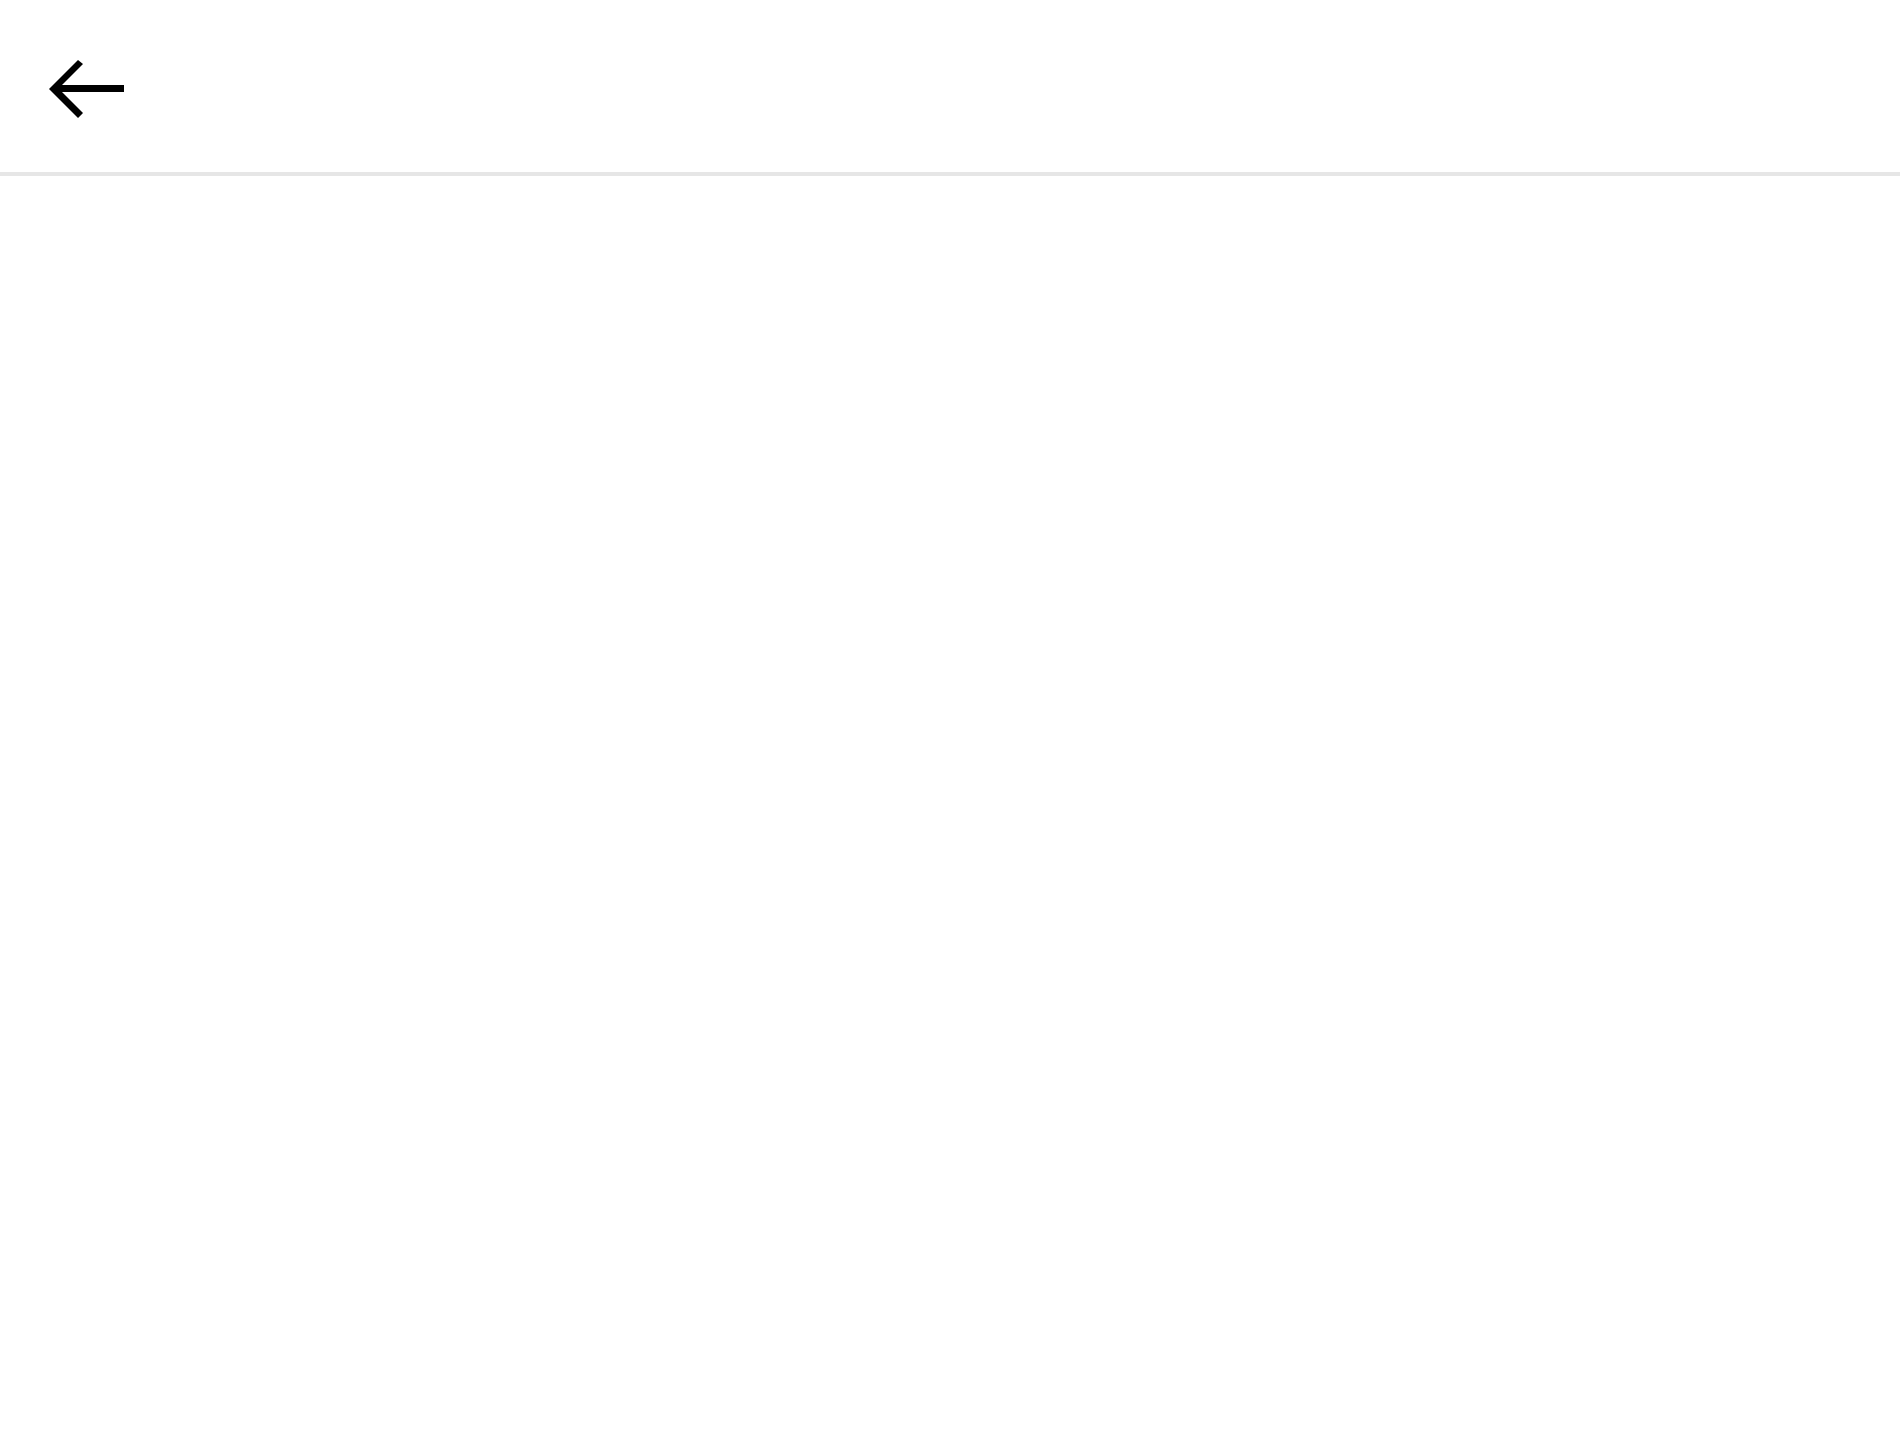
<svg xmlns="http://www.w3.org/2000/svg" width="1900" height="1430">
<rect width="100%" height="100%" fill="#fff"/>
<rect y="172" width="1900" height="4" fill="#e6e6e6"/>
<path d="M78 60l5 4l-21 21h62v7h-62l21 21l-5 5l-29-29z" fill="#000"/>
</svg>
